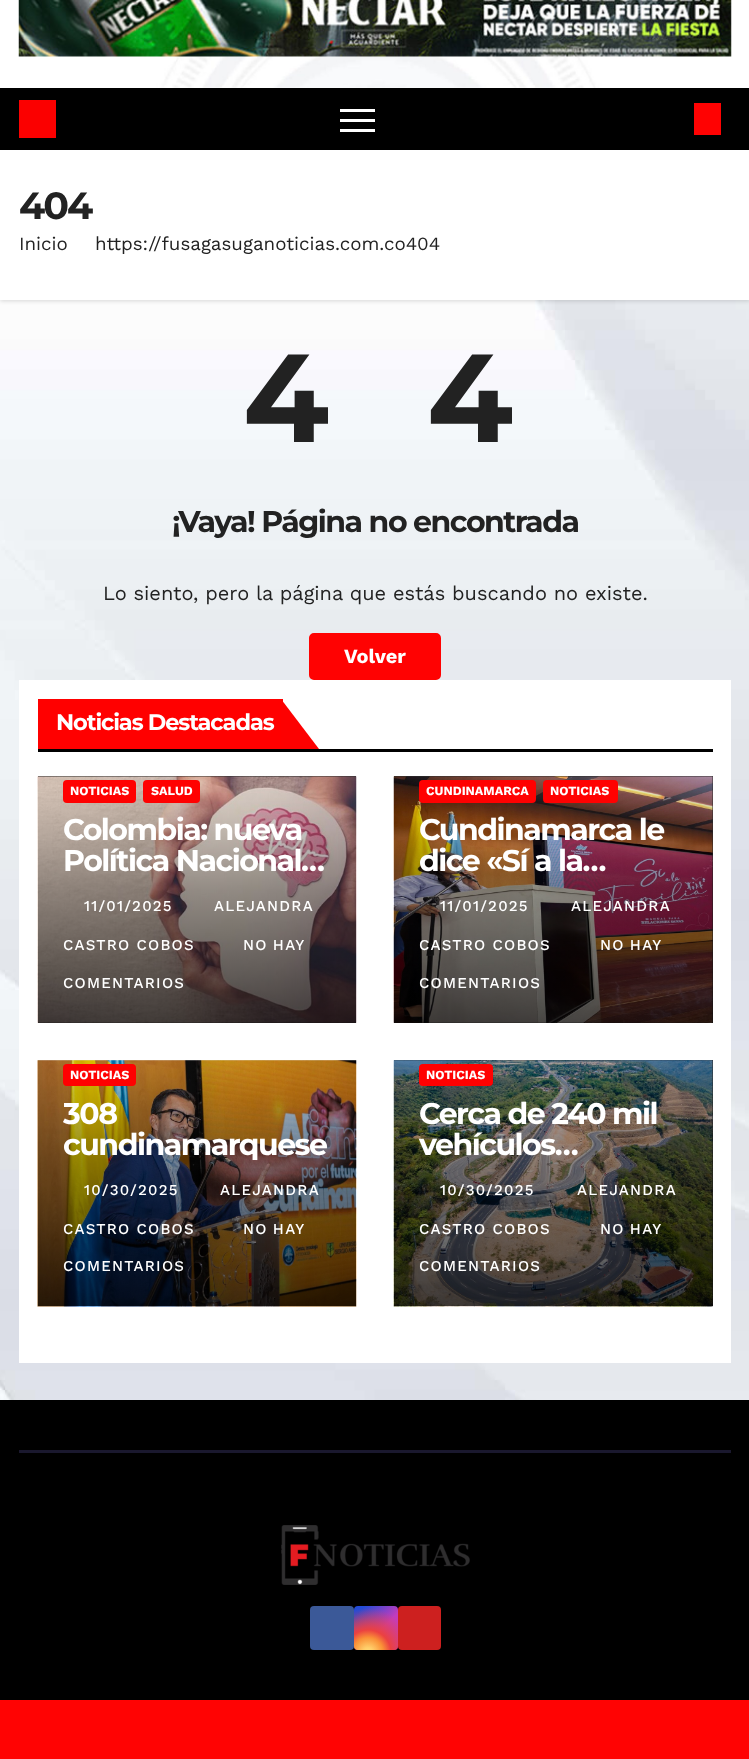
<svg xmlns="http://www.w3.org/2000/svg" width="749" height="1759">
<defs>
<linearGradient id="g1" gradientUnits="userSpaceOnUse" x1="197" y1="758" x2="197" y2="1023"><stop offset="0" stop-color="#000" stop-opacity="0"/><stop offset="0.5" stop-color="#000" stop-opacity="0.4"/><stop offset="1" stop-color="#000" stop-opacity="0.7"/></linearGradient>
<linearGradient id="g2" gradientUnits="userSpaceOnUse" x1="553" y1="758" x2="553" y2="1023"><stop offset="0" stop-color="#000" stop-opacity="0"/><stop offset="0.5" stop-color="#000" stop-opacity="0.4"/><stop offset="1" stop-color="#000" stop-opacity="0.7"/></linearGradient>
<linearGradient id="g3" gradientUnits="userSpaceOnUse" x1="197" y1="1004" x2="197" y2="1306"><stop offset="0" stop-color="#000" stop-opacity="0"/><stop offset="0.5" stop-color="#000" stop-opacity="0.4"/><stop offset="1" stop-color="#000" stop-opacity="0.7"/></linearGradient>
<clipPath id="clip1"><rect x="63" y="1098" width="268" height="62"/></clipPath>
<linearGradient id="g4" gradientUnits="userSpaceOnUse" x1="553" y1="1004" x2="553" y2="1306"><stop offset="0" stop-color="#000" stop-opacity="0"/><stop offset="0.5" stop-color="#000" stop-opacity="0.4"/><stop offset="1" stop-color="#000" stop-opacity="0.7"/></linearGradient>
<linearGradient id="g5" gradientUnits="userSpaceOnUse" x1="354" y1="1606" x2="398" y2="1650"><stop offset="0.12" stop-color="#234bd7"/><stop offset="0.58" stop-color="#c33cbe"/></linearGradient>
<radialGradient id="g6" gradientUnits="userSpaceOnUse" cx="368" cy="1653" r="55"><stop offset="0" stop-color="#ffe17d"/><stop offset="0.1" stop-color="#ffcd69"/><stop offset="0.28" stop-color="#fa9137"/><stop offset="0.42" stop-color="#eb4141"/><stop offset="0.82" stop-color="#eb4141" stop-opacity="0"/></radialGradient>
</defs>
<rect width="100%" height="100%" fill="#fff"/>
<image x="0" y="300" width="749" height="1100" href="media/1.png"/>
<image x="0" y="0" width="749" height="88" href="media/2.png"/>
<image x="18" y="0" width="714" height="57" href="media/3.png"/>
<rect y="151" width="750" height="150" fill="#00000026" filter="blur(2px)"/>
<rect y="88" width="749" height="62" fill="#000"/>
<rect x="19" y="100" width="37" height="38" fill="#fb0000"/>
<rect x="340" y="109" width="35" height="3" fill="#fff"/>
<rect x="340" y="119" width="35" height="3" fill="#fff"/>
<rect x="340" y="129" width="35" height="3" fill="#fff"/>
<rect x="694" y="103" width="27" height="32" fill="#ff0202"/>
<rect y="150" width="749" height="150" fill="#fff"/>
<text x="19" y="219" style="font-family:Montserrat;font-size:38px;font-weight:bold;letter-spacing:-2px;fill:#222">404</text>
<text x="19" y="250" style="font-family:Work Sans;font-size:18.75px;fill:#222">Inicio</text>
<text x="95" y="250" style="font-family:Work Sans;font-size:18.75px;fill:#222">https://fusagasuganoticias.com.co404</text>
<text x="243" y="442" style="font-family:Montserrat;font-size:125px;font-weight:bold;letter-spacing:-6px;fill:#222">4</text>
<text x="427" y="442" style="font-family:Montserrat;font-size:125px;font-weight:bold;letter-spacing:-6px;fill:#222">4</text>
<text x="172" y="532" style="font-family:Montserrat;font-size:30px;font-weight:bold;letter-spacing:-1.5px;fill:#222">¡Vaya! Página no encontrada</text>
<text x="103" y="600" style="font-family:Work Sans;font-size:20px;fill:#222">Lo siento, pero la página que estás buscando no existe.</text>
<rect x="310.5" y="634.5" width="129" height="44" rx="3.5" fill="#ff0202" stroke="#ff0202" stroke-width="3"/>
<text x="344" y="663" style="font-family:Work Sans;font-size:20px;font-weight:bold;fill:#fff">Volver</text>
<rect x="19" y="680" width="712" height="683" fill="#fff"/>
<rect x="38" y="749" width="675" height="3" fill="#000"/>
<rect x="38" y="699" width="245" height="50" fill="#f00"/>
<text x="56" y="730" style="font-family:Montserrat;font-size:22.5px;font-weight:bold;letter-spacing:-1.1px;fill:#fff">Noticias Destacadas</text>
<path d="M281 749v-50l38 50z" fill="#fd0101"/>
<rect x="38" y="776" width="318" height="247" fill="#333"/>
<image x="37" y="776" width="320" height="247" href="media/4.png"/>
<rect x="38" y="776" width="318" height="247" fill="url(#g1)"/>
<rect x="63" y="780" width="73" height="23" rx="4" fill="#ff0101"/>
<text x="70" y="795" style="font-family:Work Sans;font-size:12.5px;font-weight:bold;fill:#fff">NOTICIAS</text>
<rect x="143" y="780" width="57" height="23" rx="4" fill="#ff0101"/>
<text x="151" y="795" style="font-family:Work Sans;font-size:12.5px;font-weight:bold;fill:#fff">SALUD</text>
<text x="63" y="840" style="font-family:Montserrat;font-size:30px;font-weight:bold;letter-spacing:-1.5px;fill:#fff">Colombia: nueva</text>
<text x="63" y="871" style="font-family:Montserrat;font-size:30px;font-weight:bold;letter-spacing:-1.5px;fill:#fff">Política Nacional…</text>
<text x="84" y="911" style="font-family:Work Sans;font-size:15px;font-weight:500;letter-spacing:1.25px;fill:#fff">11/01/2025</text>
<text x="214" y="911" style="font-family:Work Sans;font-size:15px;font-weight:500;letter-spacing:1.25px;fill:#fff">ALEJANDRA</text>
<text x="63" y="950" style="font-family:Work Sans;font-size:15px;font-weight:500;letter-spacing:1.25px;fill:#fff">CASTRO COBOS</text>
<text x="243" y="950" word-spacing="-1" style="font-family:Work Sans;font-size:15px;font-weight:500;letter-spacing:1.25px;fill:#fff">NO HAY</text>
<text x="63" y="988" style="font-family:Work Sans;font-size:15px;font-weight:500;letter-spacing:1.25px;fill:#fff">COMENTARIOS</text>
<rect x="394" y="776" width="319" height="247" fill="#333"/>
<image x="393" y="776" width="320" height="247" href="media/5.png"/>
<rect x="394" y="776" width="319" height="247" fill="url(#g2)"/>
<rect x="419" y="780" width="117" height="23" rx="4" fill="#ff0101"/>
<text x="426" y="795" style="font-family:Work Sans;font-size:12.5px;font-weight:bold;fill:#fff">CUNDINAMARCA</text>
<rect x="543" y="780" width="75" height="23" rx="4" fill="#ff0101"/>
<text x="550" y="795" style="font-family:Work Sans;font-size:12.5px;font-weight:bold;fill:#fff">NOTICIAS</text>
<text x="419" y="840" style="font-family:Montserrat;font-size:30px;font-weight:bold;letter-spacing:-1.5px;fill:#fff">Cundinamarca le</text>
<text x="419" y="871" style="font-family:Montserrat;font-size:30px;font-weight:bold;letter-spacing:-1.5px;fill:#fff">dice «Sí a la…</text>
<text x="440" y="911" style="font-family:Work Sans;font-size:15px;font-weight:500;letter-spacing:1.25px;fill:#fff">11/01/2025</text>
<text x="571" y="911" style="font-family:Work Sans;font-size:15px;font-weight:500;letter-spacing:1.25px;fill:#fff">ALEJANDRA</text>
<text x="419" y="950" style="font-family:Work Sans;font-size:15px;font-weight:500;letter-spacing:1.25px;fill:#fff">CASTRO COBOS</text>
<text x="600" y="950" word-spacing="-1" style="font-family:Work Sans;font-size:15px;font-weight:500;letter-spacing:1.25px;fill:#fff">NO HAY</text>
<text x="419" y="988" style="font-family:Work Sans;font-size:15px;font-weight:500;letter-spacing:1.25px;fill:#fff">COMENTARIOS</text>
<image x="37" y="1060" width="320" height="247" href="media/6.png"/>
<rect x="38" y="1060" width="318" height="246" fill="url(#g3)"/>
<rect x="63" y="1064" width="73" height="22" rx="4" fill="#ff0101"/>
<text x="70" y="1079" style="font-family:Work Sans;font-size:12.5px;font-weight:bold;fill:#fff">NOTICIAS</text>
<text x="63" y="1124" style="font-family:Montserrat;font-size:30px;font-weight:bold;letter-spacing:-1.5px;fill:#fff">308</text>
<g clip-path="url(#clip1)">
<text x="63" y="1155" style="font-family:Montserrat;font-size:30px;font-weight:bold;letter-spacing:-1.5px;fill:#fff">cundinamarquese</text>
</g>
<text x="84" y="1195" style="font-family:Work Sans;font-size:15px;font-weight:500;letter-spacing:1.25px;fill:#fff">10/30/2025</text>
<text x="220" y="1195" style="font-family:Work Sans;font-size:15px;font-weight:500;letter-spacing:1.25px;fill:#fff">ALEJANDRA</text>
<text x="63" y="1234" style="font-family:Work Sans;font-size:15px;font-weight:500;letter-spacing:1.25px;fill:#fff">CASTRO COBOS</text>
<text x="243" y="1234" word-spacing="-1" style="font-family:Work Sans;font-size:15px;font-weight:500;letter-spacing:1.25px;fill:#fff">NO HAY</text>
<text x="63" y="1271" style="font-family:Work Sans;font-size:15px;font-weight:500;letter-spacing:1.25px;fill:#fff">COMENTARIOS</text>
<rect x="394" y="1060" width="319" height="246" fill="#333"/>
<image x="393" y="1060" width="320" height="247" href="media/7.png"/>
<rect x="394" y="1060" width="319" height="246" fill="url(#g4)"/>
<rect x="419" y="1064" width="74" height="22" rx="4" fill="#ff0101"/>
<text x="426" y="1079" style="font-family:Work Sans;font-size:12.5px;font-weight:bold;fill:#fff">NOTICIAS</text>
<text x="419" y="1124" style="font-family:Montserrat;font-size:30px;font-weight:bold;letter-spacing:-1.5px;fill:#fff">Cerca de 240 mil</text>
<text x="419" y="1155" style="font-family:Montserrat;font-size:30px;font-weight:bold;letter-spacing:-1.5px;fill:#fff">vehículos…</text>
<text x="440" y="1195" style="font-family:Work Sans;font-size:15px;font-weight:500;letter-spacing:1.25px;fill:#fff">10/30/2025</text>
<text x="577" y="1195" style="font-family:Work Sans;font-size:15px;font-weight:500;letter-spacing:1.25px;fill:#fff">ALEJANDRA</text>
<text x="419" y="1234" style="font-family:Work Sans;font-size:15px;font-weight:500;letter-spacing:1.25px;fill:#fff">CASTRO COBOS</text>
<text x="600" y="1234" word-spacing="-1" style="font-family:Work Sans;font-size:15px;font-weight:500;letter-spacing:1.25px;fill:#fff">NO HAY</text>
<text x="419" y="1271" style="font-family:Work Sans;font-size:15px;font-weight:500;letter-spacing:1.25px;fill:#fff">COMENTARIOS</text>
<rect y="1400" width="749" height="300" fill="#000"/>
<rect x="19" y="1450" width="712" height="3" fill="#1a182e"/>
<image x="281" y="1525" width="189" height="60" href="media/8.png"/>
<rect x="310" y="1606" width="44" height="44" rx="4" fill="#3b5998"/>
<rect x="354" y="1606" width="44" height="44" rx="4" fill="url(#g5)"/>
<rect x="354" y="1606" width="44" height="44" rx="4" fill="url(#g6)"/>
<rect x="398" y="1606" width="43" height="44" rx="4" fill="#cd201f"/>
<rect y="1700" width="749" height="59" fill="#ff0303"/>
</svg>
